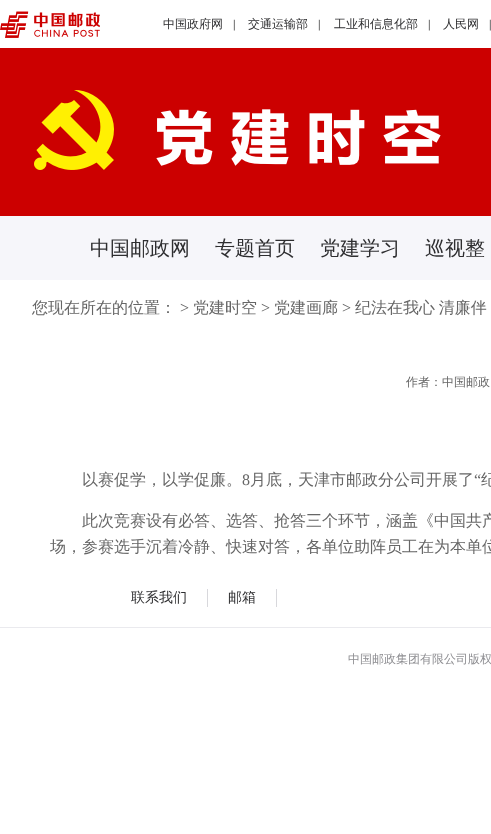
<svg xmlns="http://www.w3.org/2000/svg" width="491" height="834">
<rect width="100%" height="100%" fill="#fff"/>
<image x="0" y="11" width="100" height="27" href="media/1.png"/>
<text x="163" y="28" style="font-family:WenQuanYi Zen Hei;font-size:12px;font-weight:500;fill:#2e2e30">中国政府网</text>
<text x="233" y="28" style="font-family:Liberation Serif;font-size:12px;fill:#000">|</text>
<text x="248" y="28" style="font-family:WenQuanYi Zen Hei;font-size:12px;font-weight:500;fill:#2e2e30">交通运输部</text>
<text x="318" y="28" style="font-family:Liberation Serif;font-size:12px;fill:#000">|</text>
<text x="334" y="28" style="font-family:WenQuanYi Zen Hei;font-size:12px;font-weight:500;fill:#2e2e30">工业和信息化部</text>
<text x="428" y="28" style="font-family:Liberation Serif;font-size:12px;fill:#000">|</text>
<text x="443" y="28" style="font-family:WenQuanYi Zen Hei;font-size:12px;font-weight:500;fill:#2e2e30">人民网</text>
<text x="489" y="28" style="font-family:Liberation Serif;font-size:12px;fill:#000">|</text>
<rect y="48" width="491" height="168" fill="#c00"/>
<image x="34" y="90" width="407" height="80" href="media/2.png"/>
<rect y="216" width="491" height="64" fill="#f6f6fa"/>
<text x="90" y="255" style="font-family:WenQuanYi Zen Hei;font-size:20px;font-weight:500;fill:#2e2e30">中国邮政网</text>
<text x="215" y="255" style="font-family:WenQuanYi Zen Hei;font-size:20px;font-weight:500;fill:#2e2e30">专题首页</text>
<text x="320" y="255" style="font-family:WenQuanYi Zen Hei;font-size:20px;font-weight:500;fill:#2e2e30">党建学习</text>
<text x="425" y="255" style="font-family:WenQuanYi Zen Hei;font-size:20px;font-weight:500;fill:#2e2e30">巡视整</text>
<text x="32" y="313" style="font-family:WenQuanYi Zen Hei;font-size:16px;font-weight:500;fill:#666">您现在所在的位置：</text>
<text x="180" y="313" style="font-family:Liberation Serif;font-size:16px;fill:#666">&gt;</text>
<text x="193" y="313" style="font-family:WenQuanYi Zen Hei;font-size:16px;font-weight:500;fill:#666">党建时空</text>
<text x="261" y="313" style="font-family:Liberation Serif;font-size:16px;fill:#666">&gt;</text>
<text x="274" y="313" style="font-family:WenQuanYi Zen Hei;font-size:16px;font-weight:500;fill:#666">党建画廊</text>
<text x="342" y="313" style="font-family:Liberation Serif;font-size:16px;fill:#666">&gt;</text>
<text x="355" y="313" word-spacing="-1" style="font-family:WenQuanYi Zen Hei;font-size:16px;font-weight:500;fill:#666">纪法在我心 清廉伴</text>
<text x="406" y="386" style="font-family:WenQuanYi Zen Hei;font-size:12px;font-weight:500;fill:#666">作者：</text>
<text x="442" y="386" word-spacing="-1" style="font-family:WenQuanYi Zen Hei;font-size:12px;font-weight:500;fill:#666">中国邮政</text>
<text x="82" y="485" style="font-family:WenQuanYi Zen Hei;font-size:16px;font-weight:500;fill:#666">以赛促学，以学促廉。</text>
<text x="242" y="485" style="font-family:Liberation Serif;font-size:16px;fill:#666">8</text>
<text x="250" y="485" style="font-family:WenQuanYi Zen Hei;font-size:16px;font-weight:500;fill:#666">月底，天津市邮政分公司开展了</text>
<text x="474" y="485" style="font-family:Liberation Serif;font-size:16px;fill:#666">“</text>
<text x="481" y="485" style="font-family:WenQuanYi Zen Hei;font-size:16px;font-weight:500;fill:#666">纪</text>
<text x="82" y="526" style="font-family:WenQuanYi Zen Hei;font-size:16px;font-weight:500;fill:#666">此次竞赛设有必答、选答、抢答三个环节，涵盖《中国共产</text>
<text x="50" y="552" style="font-family:WenQuanYi Zen Hei;font-size:16px;font-weight:500;fill:#666">场，参赛选手沉着冷静、快速对答，各单位助阵员工在为本单位</text>
<rect x="207" y="589" width="1" height="18" fill="#d8d8dc"/>
<text x="131" y="602" style="font-family:WenQuanYi Zen Hei;font-size:14px;font-weight:500;fill:#2e2e30">联系我们</text>
<rect x="276" y="589" width="1" height="18" fill="#d8d8dc"/>
<text x="228" y="602" style="font-family:WenQuanYi Zen Hei;font-size:14px;font-weight:500;fill:#2e2e30">邮箱</text>
<rect y="627" width="491" height="1" fill="#eaeaee"/>
<text x="348" y="663" style="font-family:WenQuanYi Zen Hei;font-size:12px;font-weight:500;fill:#8e8e92">中国邮政集团有限公司版权</text>
</svg>
